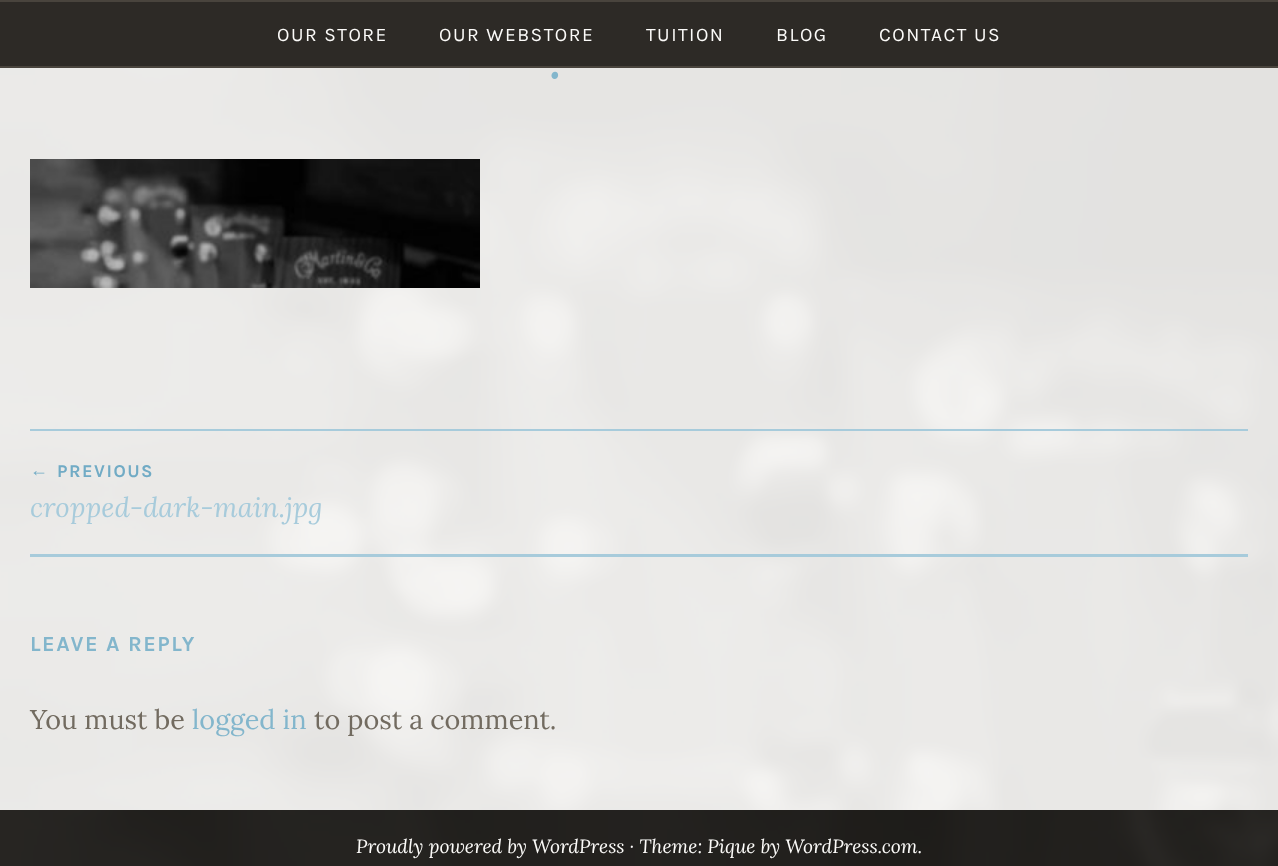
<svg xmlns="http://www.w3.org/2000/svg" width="1278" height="866">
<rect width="100%" height="100%" fill="#fff"/>
<image x="0" y="68" width="1278" height="742" href="media/1.png"/>
<rect y="2" width="1278" height="64" fill="#2d2a26"/>
<rect width="1278" height="2" fill="#49443d"/>
<rect y="66" width="1278" height="2" fill="#49443d"/>
<text x="277" y="41" style="font-family:Karla;font-size:19.2px;letter-spacing:1.5px;fill:#fcfbf9">OUR STORE</text>
<text x="439" y="41" style="font-family:Karla;font-size:19.2px;letter-spacing:1.5px;fill:#fcfbf9">OUR WEBSTORE</text>
<text x="646" y="41" style="font-family:Karla;font-size:19.2px;letter-spacing:1.5px;fill:#fcfbf9">TUITION</text>
<text x="776" y="41" style="font-family:Karla;font-size:19.2px;letter-spacing:1.5px;fill:#fcfbf9">BLOG</text>
<text x="879" y="41" style="font-family:Karla;font-size:19.2px;letter-spacing:1.5px;fill:#fcfbf9">CONTACT US</text>
<text x="549" y="78" style="font-family:Lora;font-size:58px;font-style:italic;fill:#83b6cc">.</text>
<image x="30" y="159" width="450" height="129" href="media/2.png"/>
<rect x="30" y="429" width="1218" height="2" fill="#a7cbdb"/>
<rect x="30" y="554" width="1218" height="3" fill="#a7cbdb"/>
<text x="30" y="476" style="font-family:Liberation Serif;font-size:18px;letter-spacing:1.5px;fill:#71abc5">←</text>
<text x="57" y="477" style="font-family:Karla;font-size:18px;font-weight:bold;letter-spacing:1.5px;fill:#71abc5">PREVIOUS</text>
<text x="30" y="517" style="font-family:Lora;font-size:27.6px;font-style:italic;fill:#a7cbdb">cropped-dark-main.jpg</text>
<text x="30" y="651" style="font-family:Karla;font-size:21.5px;font-weight:bold;letter-spacing:1.5px;fill:#83b6cc">LEAVE A REPLY</text>
<text x="30" y="729" style="font-family:Lora;font-size:27px;fill:#726b60">You must be</text>
<text x="192" y="729" style="font-family:Lora;font-size:27px;fill:#83b6cc">logged in</text>
<text x="314" y="729" style="font-family:Lora;font-size:27px;fill:#726b60">to post a comment.</text>
<image x="0" y="810" width="1278" height="56" href="media/3.png"/>
<text x="356" y="853" style="font-family:Lora;font-size:19.2px;font-style:italic;fill:#fcfbf9">Proudly powered by WordPress · Theme: Pique by WordPress.com.</text>
</svg>
